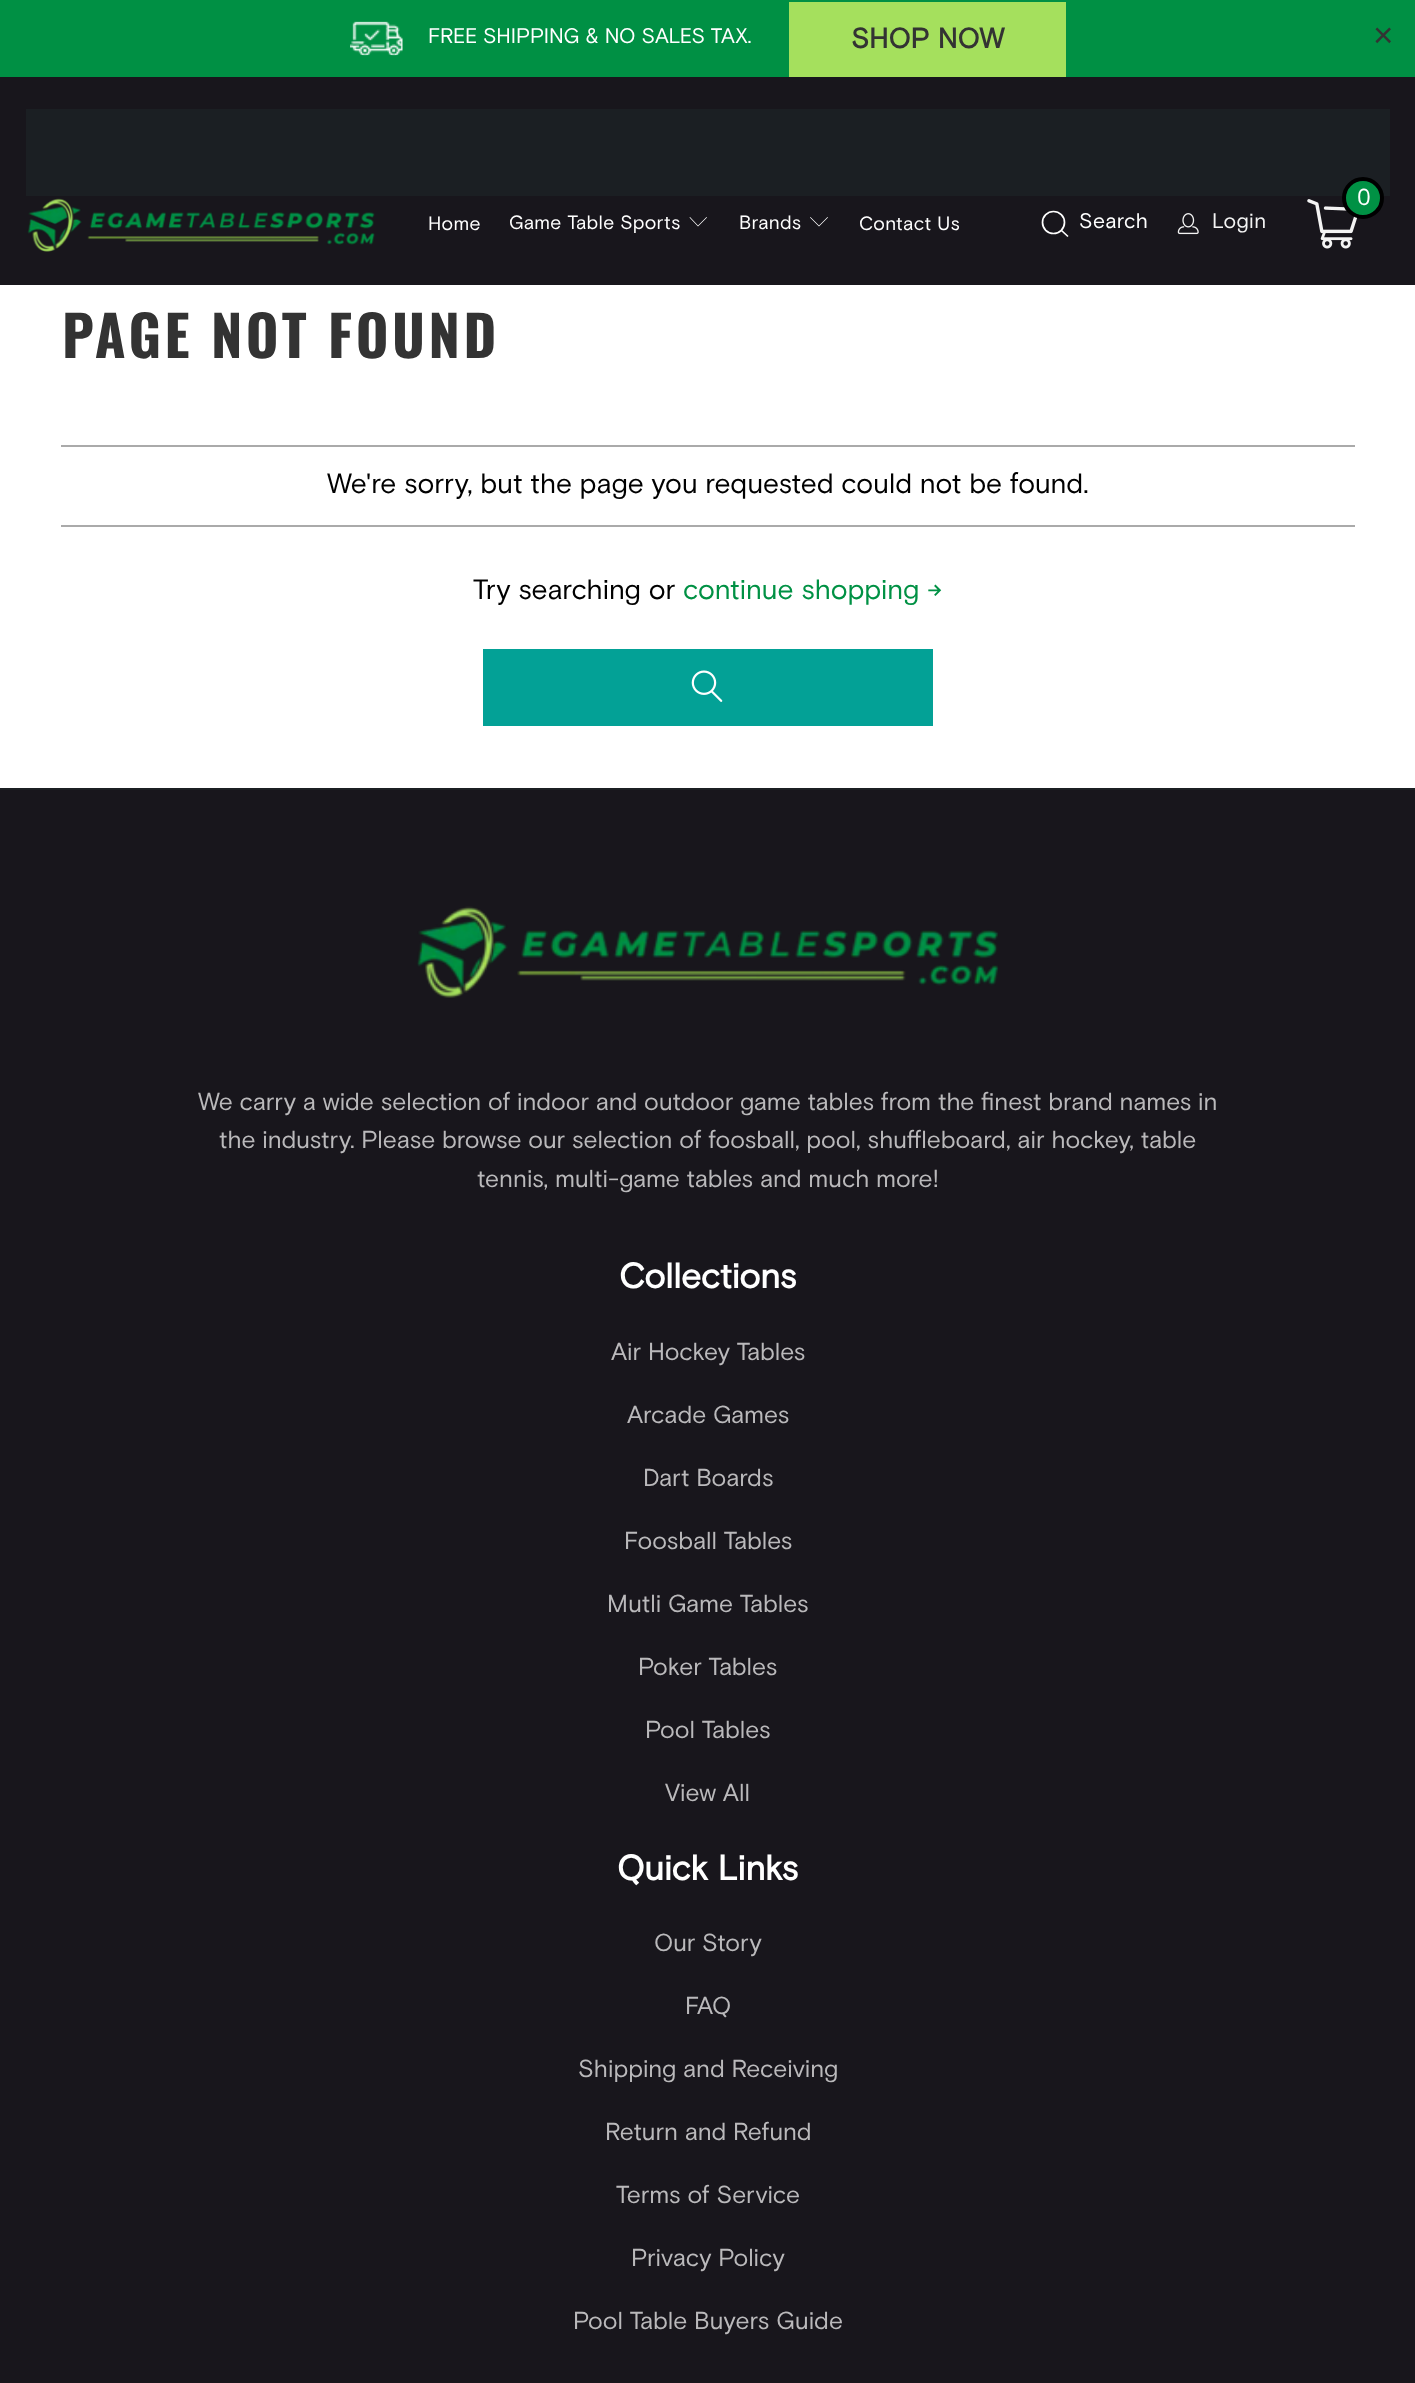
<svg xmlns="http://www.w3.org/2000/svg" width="1415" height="2383">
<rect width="100%" height="100%" fill="#fff"/>
<rect width="1415" height="77" fill="#009044"/>
<image x="350" y="21" width="53" height="35" href="media/1.png"/>
<text x="428" y="43" style="font-family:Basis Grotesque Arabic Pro;font-size:21px;fill:#fff">FREE SHIPPING &amp; NO SALES TAX.</text>
<rect x="789" y="2" width="277" height="75" fill="#a5e05d"/>
<text x="851" y="48" style="font-family:Basis Grotesque Arabic Pro;font-size:28px;font-weight:bold;letter-spacing:0.4px;fill:#333">SHOP NOW</text>
<text x="1373" y="47" style="font-family:Liberation Sans;font-size:35px;letter-spacing:3.5px;fill:#333">×</text>
<rect y="77" width="1415" height="208" fill="#18161c"/>
<rect x="26" y="109" width="1364" height="87" fill="#1b1f23"/>
<image x="27" y="198" width="348" height="54" href="media/2.png"/>
<text x="428" y="230" style="font-family:Basis Grotesque Arabic Pro;font-size:19.25px;letter-spacing:0.4px;fill:#fff">Home</text>
<text x="509" y="229" style="font-family:Basis Grotesque Arabic Pro;font-size:19.25px;letter-spacing:0.4px;fill:#fff">Game Table Sports</text>
<path d="M698 226.5l-8.5-9l.5-.5l8 8.5l8.5-8.5l.5 .5z" fill="#fff"/>
<text x="739" y="229" style="font-family:Basis Grotesque Arabic Pro;font-size:19.25px;letter-spacing:0.4px;fill:#fff">Brands</text>
<path d="M819 226.5l-9-9l.5-.5l8.5 8.5l8.5-8.5l.5 .5z" fill="#fff"/>
<text x="859" y="230" style="font-family:Basis Grotesque Arabic Pro;font-size:19.25px;letter-spacing:0.4px;fill:#fff">Contact Us</text>
<circle cx="1053.5" cy="222.5" r="11" fill="none" stroke="#fff" stroke-width="1.7"/>
<path d="M1061.5 230.5l6.5 6z" fill="none" stroke="#fff" stroke-width="1.7"/>
<text x="1079" y="228" style="font-family:Basis Grotesque Arabic Pro;font-size:21px;letter-spacing:0.4px;fill:#fff">Search</text>
<image x="1177" y="213" width="22" height="22" href="media/3.png"/>
<text x="1212" y="228" style="font-family:Basis Grotesque Arabic Pro;font-size:21px;letter-spacing:0.4px;fill:#f4f4f4">Login</text>
<image x="1307" y="199" width="50" height="50" href="media/4.png"/>
<circle cx="1363" cy="198" r="19" fill="#009144" stroke="#000" stroke-width="4"/>
<text x="1357" y="205" style="font-family:Nunito;font-size:23px;letter-spacing:-2px;fill:#fff">0</text>
<text x="62" y="358" style="font-family:Oswald;font-size:56px;font-weight:bold;letter-spacing:3.5px;fill:#333">PAGE NOT FOUND</text>
<rect x="61" y="445" width="1294" height="2" fill="#aaa"/>
<rect x="61" y="525" width="1294" height="2" fill="#aaa"/>
<text x="327" y="493" style="font-family:Basis Grotesque Arabic Pro;font-size:28px;fill:#000">We're sorry, but the page you requested could not be found.</text>
<text x="473" y="599" style="font-family:Basis Grotesque Arabic Pro;font-size:28px;fill:#000">Try searching or</text>
<text x="683" y="599" style="font-family:Basis Grotesque Arabic Pro;font-size:28px;fill:#009144">continue shopping →</text>
<rect x="483" y="649" width="450" height="77" fill="#03a196"/>
<image x="691" y="670" width="32" height="32" href="media/5.png"/>
<rect y="790" width="1415" height="1593" fill="#18161c"/>
<rect y="788" width="1415" height="2" fill="#1b1f23"/>
<image x="417" y="906" width="582" height="92" href="media/6.png"/>
<text x="198" y="1110" style="font-family:Basis Grotesque Arabic Pro;font-size:24.5px;fill:#bab9bb">We carry a wide selection of indoor and outdoor game tables from the finest brand names in</text>
<text x="219" y="1148" style="font-family:Basis Grotesque Arabic Pro;font-size:24.5px;fill:#bab9bb">the industry. Please browse our selection of foosball, pool, shuffleboard, air hockey, table</text>
<text x="477" y="1187" style="font-family:Basis Grotesque Arabic Pro;font-size:24.5px;fill:#bab9bb">tennis, multi-game tables and much more!</text>
<text x="619" y="1288" style="font-family:Basis Grotesque Arabic Pro;font-size:35px;font-weight:bold;fill:#fff">Collections</text>
<text x="611" y="1360" style="font-family:Basis Grotesque Arabic Pro;font-size:24.5px;fill:#bab9bb">Air Hockey Tables</text>
<text x="627" y="1423" style="font-family:Basis Grotesque Arabic Pro;font-size:24.5px;fill:#bab9bb">Arcade Games</text>
<text x="643" y="1486" style="font-family:Basis Grotesque Arabic Pro;font-size:24.5px;fill:#bab9bb">Dart Boards</text>
<text x="624" y="1549" style="font-family:Basis Grotesque Arabic Pro;font-size:24.5px;fill:#bab9bb">Foosball Tables</text>
<text x="607" y="1612" style="font-family:Basis Grotesque Arabic Pro;font-size:24.5px;fill:#bab9bb">Mutli Game Tables</text>
<text x="638" y="1675" style="font-family:Basis Grotesque Arabic Pro;font-size:24.5px;fill:#bab9bb">Poker Tables</text>
<text x="645" y="1738" style="font-family:Basis Grotesque Arabic Pro;font-size:24.5px;fill:#bab9bb">Pool Tables</text>
<text x="665" y="1801" style="font-family:Basis Grotesque Arabic Pro;font-size:24.5px;fill:#bab9bb">View All</text>
<text x="617" y="1880" style="font-family:Basis Grotesque Arabic Pro;font-size:35px;font-weight:bold;fill:#fff">Quick Links</text>
<text x="654" y="1951" style="font-family:Basis Grotesque Arabic Pro;font-size:24.5px;fill:#bab9bb">Our Story</text>
<text x="685" y="2014" style="font-family:Basis Grotesque Arabic Pro;font-size:24.5px;fill:#bab9bb">FAQ</text>
<text x="578" y="2077" style="font-family:Basis Grotesque Arabic Pro;font-size:24.5px;fill:#bab9bb">Shipping and Receiving</text>
<text x="605" y="2140" style="font-family:Basis Grotesque Arabic Pro;font-size:24.5px;fill:#bab9bb">Return and Refund</text>
<text x="616" y="2203" style="font-family:Basis Grotesque Arabic Pro;font-size:24.5px;fill:#bab9bb">Terms of Service</text>
<text x="631" y="2266" style="font-family:Basis Grotesque Arabic Pro;font-size:24.5px;fill:#bab9bb">Privacy Policy</text>
<text x="573" y="2329" style="font-family:Basis Grotesque Arabic Pro;font-size:24.5px;fill:#bab9bb">Pool Table Buyers Guide</text>
</svg>
